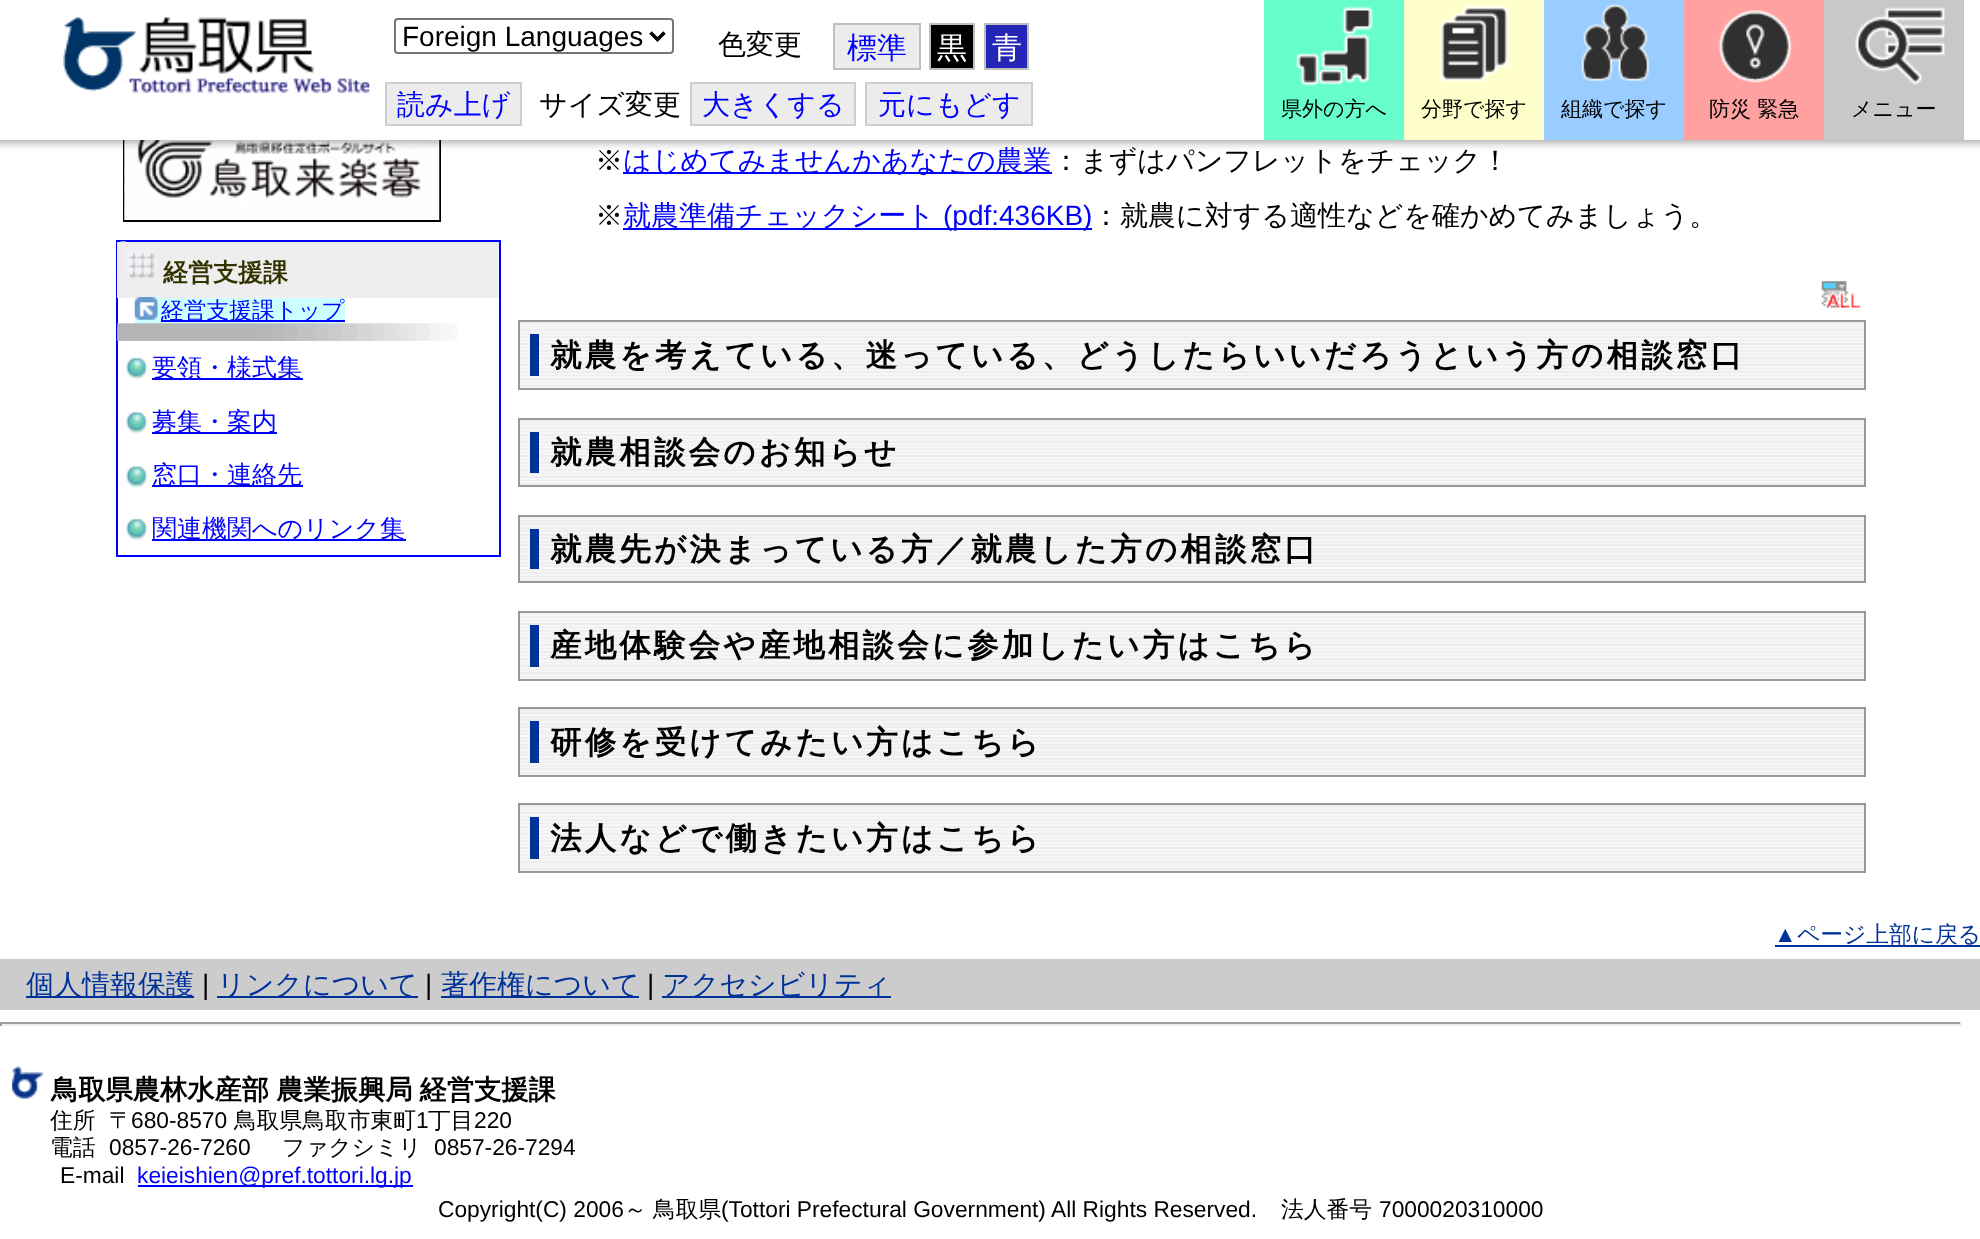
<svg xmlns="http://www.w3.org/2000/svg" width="1980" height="1239">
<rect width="100%" height="100%" fill="#fff"/>
<rect x="124" y="117" width="316" height="104" fill="none" stroke="#000" stroke-width="2"/>
<image x="124" y="140" width="316" height="80" href="media/7.png"/>
<rect x="-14" y="2" width="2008" height="140" fill="#0000001a" filter="blur(4.5px)"/>
<rect x="-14" y="2" width="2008" height="140" fill="#0000001a" filter="blur(4.5px)"/>
<rect x="-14" y="2" width="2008" height="140" fill="#0000001a" filter="blur(4.5px)"/>
<rect x="-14" y="2" width="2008" height="140" fill="#0000001a" filter="blur(4.5px)"/>
<rect width="1980" height="140" fill="#fff"/>
<image x="63" y="17" width="307" height="76" href="media/1.png"/>
<rect x="395" y="19" width="278" height="34" rx="3" fill="none" stroke="#767676" stroke-width="2"/>
<path d="M650.5 32.5l7 7l7-7" fill="none" stroke="#000" stroke-width="3.5"/>
<text x="402" y="46" style="font-family:Liberation Sans;font-size:28px;fill:#000">Foreign Languages</text>
<text x="718" y="54" style="font-family:WenQuanYi Zen Hei;font-size:28px;font-weight:500;fill:#000">色変更</text>
<rect x="834" y="24" width="86" height="45" fill="#ececec" stroke="#bfbfbf" stroke-width="2"/>
<text x="847" y="58" style="font-family:WenQuanYi Zen Hei;font-size:30px;font-weight:500;fill:#00f">標準</text>
<rect x="930" y="24" width="44" height="45" fill="#000" stroke="#bfbfbf" stroke-width="2"/>
<text x="937" y="58" style="font-family:WenQuanYi Zen Hei;font-size:30px;font-weight:500;fill:#fff">黒</text>
<rect x="985" y="24" width="43" height="45" fill="#2525b8" stroke="#bfbfbf" stroke-width="2"/>
<text x="992" y="58" style="font-family:WenQuanYi Zen Hei;font-size:30px;font-weight:500;fill:#fff">青</text>
<rect x="386" y="83" width="135" height="42" fill="#ececec" stroke="#cecece" stroke-width="2"/>
<text x="397" y="114" style="font-family:WenQuanYi Zen Hei;font-size:28px;font-weight:500;fill:#00f">読み上げ</text>
<text x="539" y="114" style="font-family:WenQuanYi Zen Hei;font-size:28px;font-weight:500;fill:#000">サイズ変更</text>
<rect x="692" y="84" width="162" height="40" fill="#ececec"/>
<text x="702" y="114" style="font-family:WenQuanYi Zen Hei;font-size:28px;font-weight:500;fill:#00f">大きくする</text>
<rect x="690" y="82" width="166" height="2" fill="#cecece"/>
<rect x="690" y="124" width="40" height="2" fill="#cecece"/>
<rect x="690" y="82" width="2" height="44" fill="#cecece"/>
<rect x="854" y="82" width="2" height="44" fill="#cecece"/>
<rect x="730" y="124" width="126" height="2" fill="#cecece"/>
<rect x="867" y="84" width="164" height="40" fill="#ececec"/>
<text x="878" y="114" style="font-family:WenQuanYi Zen Hei;font-size:28px;font-weight:500;fill:#00f">元にもどす</text>
<rect x="865" y="82" width="168" height="2" fill="#cecece"/>
<rect x="865" y="124" width="40" height="2" fill="#cecece"/>
<rect x="865" y="82" width="2" height="44" fill="#cecece"/>
<rect x="1031" y="82" width="2" height="44" fill="#cecece"/>
<rect x="905" y="124" width="128" height="2" fill="#cecece"/>
<rect x="1264" width="140" height="140" fill="#6fc"/>
<image x="1296" y="6" width="77" height="81" href="media/2.png"/>
<text x="1281" y="116" style="font-family:WenQuanYi Zen Hei;font-size:21px;font-weight:500;fill:#000">県外の方へ</text>
<rect x="1404" width="140" height="140" fill="#ffc"/>
<image x="1440" y="5" width="69" height="78" href="media/3.png"/>
<text x="1421" y="116" style="font-family:WenQuanYi Zen Hei;font-size:21px;font-weight:500;fill:#000">分野で探す</text>
<rect x="1544" width="140" height="140" fill="#9cf"/>
<image x="1581" y="3" width="70" height="78" href="media/4.png"/>
<text x="1561" y="116" style="font-family:WenQuanYi Zen Hei;font-size:21px;font-weight:500;fill:#000">組織で探す</text>
<rect x="1684" width="140" height="140" fill="#ffa1a1"/>
<image x="1718" y="10" width="75" height="73" href="media/5.png"/>
<text x="1709" y="116" style="font-family:WenQuanYi Zen Hei;font-size:21px;font-weight:500;fill:#000">防災 緊急</text>
<rect x="1824" width="140" height="140" fill="#c8c8cb"/>
<image x="1854" y="7" width="91" height="78" href="media/6.png"/>
<text x="1851" y="116" style="font-family:WenQuanYi Zen Hei;font-size:21px;font-weight:500;fill:#000">メニュー</text>
<rect x="117" y="241" width="383" height="315" fill="none" stroke="#00f" stroke-width="2"/>
<image x="120" y="241" width="6" height="1" href="media/8.png"/>
<rect x="117" y="242" width="382" height="56" fill="#eee"/>
<image x="126" y="250" width="30" height="29" href="media/9.png"/>
<text x="163" y="281" style="font-family:WenQuanYi Zen Hei;font-size:25px;font-weight:bold;fill:#330">経営支援課</text>
<rect x="135" y="298" width="210" height="26" fill="#cff"/>
<image x="134" y="297" width="24" height="23" href="media/10.png"/>
<rect x="161" y="320" width="184" height="2" fill="#00f"/>
<text x="161" y="318" style="font-family:WenQuanYi Zen Hei;font-size:22.75px;font-weight:500;fill:#00f">経営支援課トップ</text>
<image x="117" y="323" width="341" height="18" href="media/11.png"/>
<image x="117" y="326" width="300" height="15" href="media/12.png"/>
<image x="126" y="357" width="22" height="23" href="media/13.png"/>
<rect x="152" y="378" width="151" height="2" fill="#00f"/>
<text x="152" y="376" style="font-family:WenQuanYi Zen Hei;font-size:25px;font-weight:500;fill:#00f">要領・様式集</text>
<image x="126" y="412" width="22" height="22" href="media/14.png"/>
<rect x="152" y="432" width="125" height="2" fill="#00f"/>
<text x="152" y="430" style="font-family:WenQuanYi Zen Hei;font-size:25px;font-weight:500;fill:#00f">募集・案内</text>
<image x="126" y="466" width="22" height="22" href="media/15.png"/>
<rect x="152" y="485" width="151" height="2" fill="#00f"/>
<text x="152" y="483" style="font-family:WenQuanYi Zen Hei;font-size:25px;font-weight:500;fill:#00f">窓口・連絡先</text>
<image x="126" y="518" width="22" height="23" href="media/13.png"/>
<rect x="152" y="539" width="254" height="2" fill="#00f"/>
<text x="152" y="537" style="font-family:WenQuanYi Zen Hei;font-size:25px;font-weight:500;fill:#00f">関連機関へのリンク集</text>
<text x="595" y="170" style="font-family:WenQuanYi Zen Hei;font-size:28px;font-weight:500;fill:#000">※</text>
<rect x="623" y="172" width="429" height="2" fill="#00f"/>
<text x="623" y="170" style="font-family:WenQuanYi Zen Hei;font-size:28px;font-weight:500;fill:#00f">はじめてみませんかあなたの農業</text>
<text x="1052" y="170" style="font-family:WenQuanYi Zen Hei;font-size:28px;font-weight:500;fill:#000">：まずはパンフレットをチェック！</text>
<text x="595" y="225" style="font-family:WenQuanYi Zen Hei;font-size:28px;font-weight:500;fill:#000">※</text>
<rect x="623" y="228" width="469" height="2" fill="#00f"/>
<text x="623" y="225" style="font-family:WenQuanYi Zen Hei;font-size:28px;font-weight:500;fill:#00f">就農準備チェックシート</text>
<text x="943" y="225" style="font-family:Liberation Sans;font-size:28px;fill:#00f">(pdf:436KB)</text>
<text x="1092" y="225" style="font-family:WenQuanYi Zen Hei;font-size:28px;font-weight:500;fill:#000">：就農に対する適性などを確かめてみましょう。</text>
<image x="1821" y="281" width="40" height="27" href="media/16.png"/>
<image x="520" y="322" width="1344" height="66" href="media/17.png"/>
<rect x="519" y="321" width="1346" height="68" fill="none" stroke="#999" stroke-width="2"/>
<rect x="530" y="334" width="9" height="42" fill="#039"/>
<text x="550" y="366" style="font-family:WenQuanYi Zen Hei;font-size:31.5px;font-weight:bold;letter-spacing:3.15px;fill:#000">就農を考えている、迷っている、どうしたらいいだろうという方の相談窓口</text>
<image x="520" y="420" width="1344" height="65" href="media/18.png"/>
<rect x="519" y="419" width="1346" height="67" fill="none" stroke="#999" stroke-width="2"/>
<rect x="530" y="432" width="9" height="41" fill="#039"/>
<text x="550" y="463" style="font-family:WenQuanYi Zen Hei;font-size:31.5px;font-weight:bold;letter-spacing:3.15px;fill:#000">就農相談会のお知らせ</text>
<image x="520" y="517" width="1344" height="64" href="media/19.png"/>
<rect x="519" y="516" width="1346" height="66" fill="none" stroke="#999" stroke-width="2"/>
<rect x="530" y="529" width="9" height="40" fill="#039"/>
<text x="550" y="560" style="font-family:WenQuanYi Zen Hei;font-size:31.5px;font-weight:bold;letter-spacing:3.15px;fill:#000">就農先が決まっている方／就農した方の相談窓口</text>
<image x="520" y="613" width="1344" height="66" href="media/20.png"/>
<rect x="519" y="612" width="1346" height="68" fill="none" stroke="#999" stroke-width="2"/>
<rect x="530" y="625" width="9" height="42" fill="#039"/>
<text x="550" y="656" style="font-family:WenQuanYi Zen Hei;font-size:31.5px;font-weight:bold;letter-spacing:3.15px;fill:#000">産地体験会や産地相談会に参加したい方はこちら</text>
<image x="520" y="709" width="1344" height="66" href="media/21.png"/>
<rect x="519" y="708" width="1346" height="68" fill="none" stroke="#999" stroke-width="2"/>
<rect x="530" y="721" width="9" height="42" fill="#039"/>
<text x="550" y="753" style="font-family:WenQuanYi Zen Hei;font-size:31.5px;font-weight:bold;letter-spacing:3.15px;fill:#000">研修を受けてみたい方はこちら</text>
<image x="520" y="805" width="1344" height="66" href="media/17.png"/>
<rect x="519" y="804" width="1346" height="68" fill="none" stroke="#999" stroke-width="2"/>
<rect x="530" y="817" width="9" height="42" fill="#039"/>
<text x="550" y="849" style="font-family:WenQuanYi Zen Hei;font-size:31.5px;font-weight:bold;letter-spacing:3.15px;fill:#000">法人などで働きたい方はこちら</text>
<text x="1774" y="942" style="font-family:Liberation Sans;font-size:22.75px;fill:#039">▲</text>
<rect x="1775" y="945" width="205" height="2" fill="#039"/>
<text x="1797" y="942" style="font-family:WenQuanYi Zen Hei;font-size:22.75px;font-weight:500;fill:#039">ページ上部に戻る</text>
<rect y="959" width="1980" height="51" fill="#ccc"/>
<rect x="26" y="996" width="168" height="2" fill="#039"/>
<text x="26" y="994" style="font-family:WenQuanYi Zen Hei;font-size:28px;font-weight:500;fill:#039">個人情報保護</text>
<text x="202" y="994" style="font-family:Liberation Sans;font-size:28px;fill:#000">|</text>
<rect x="217" y="996" width="201" height="2" fill="#039"/>
<text x="217" y="994" style="font-family:WenQuanYi Zen Hei;font-size:28px;font-weight:500;fill:#039">リンクについて</text>
<text x="425" y="994" style="font-family:Liberation Sans;font-size:28px;fill:#000">|</text>
<rect x="441" y="996" width="198" height="2" fill="#039"/>
<text x="441" y="994" style="font-family:WenQuanYi Zen Hei;font-size:28px;font-weight:500;fill:#039">著作権について</text>
<text x="647" y="994" style="font-family:Liberation Sans;font-size:28px;fill:#000">|</text>
<rect x="662" y="996" width="229" height="2" fill="#039"/>
<text x="662" y="994" style="font-family:WenQuanYi Zen Hei;font-size:28px;font-weight:500;fill:#039">アクセシビリティ</text>
<rect y="1022" width="1962" height="2" fill="#9f9f9f"/>
<rect x="1960" y="1022" width="2" height="4" fill="#eee"/>
<rect y="1024" width="1962" height="2" fill="#eee"/>
<rect y="1022" width="2" height="4" fill="#9f9f9f"/>
<image x="12" y="1066" width="32" height="33" href="media/22.png"/>
<text x="51" y="1099" word-spacing="-1" style="font-family:WenQuanYi Zen Hei;font-size:27.25px;font-weight:bold;fill:#000">鳥取県農林水産部 農業振興局 経営支援課</text>
<text x="50" y="1128" style="font-family:WenQuanYi Zen Hei;font-size:22.75px;font-weight:500;fill:#000">住所</text>
<text x="109" y="1128" style="font-family:WenQuanYi Zen Hei;font-size:22.75px;font-weight:500;fill:#000">〒</text>
<text x="131" y="1128" style="font-family:Liberation Sans;font-size:22.75px;fill:#000">680-8570</text>
<text x="234" y="1128" style="font-family:WenQuanYi Zen Hei;font-size:22.75px;font-weight:500;fill:#000">鳥取県鳥取市東町</text>
<text x="416" y="1128" style="font-family:Liberation Sans;font-size:22.75px;fill:#000">1</text>
<text x="428" y="1128" style="font-family:WenQuanYi Zen Hei;font-size:22.75px;font-weight:500;fill:#000">丁目</text>
<text x="474" y="1128" style="font-family:Liberation Sans;font-size:22.75px;fill:#000">220</text>
<text x="50" y="1155" style="font-family:WenQuanYi Zen Hei;font-size:22.75px;font-weight:500;fill:#000">電話</text>
<text x="109" y="1155" style="font-family:Liberation Sans;font-size:22.75px;fill:#000">0857-26-7260</text>
<text x="282" y="1155" style="font-family:WenQuanYi Zen Hei;font-size:22.75px;font-weight:500;fill:#000">ファクシミリ</text>
<text x="434" y="1155" style="font-family:Liberation Sans;font-size:22.75px;fill:#000">0857-26-7294</text>
<text x="60" y="1183" style="font-family:Liberation Sans;font-size:22.75px;fill:#000">E-mail</text>
<rect x="138" y="1185" width="275" height="2" fill="#00f"/>
<text x="137" y="1183" style="font-family:Liberation Sans;font-size:22.75px;fill:#00f">keieishien@pref.tottori.lg.jp</text>
<text x="438" y="1217" style="font-family:Liberation Sans;font-size:22.75px;fill:#000">Copyright(C) 2006</text>
<text x="624" y="1217" style="font-family:WenQuanYi Zen Hei;font-size:22.75px;font-weight:500;fill:#000">～</text>
<text x="653" y="1217" style="font-family:WenQuanYi Zen Hei;font-size:22.75px;font-weight:500;fill:#000">鳥取県</text>
<text x="721" y="1217" style="font-family:Liberation Sans;font-size:22.75px;fill:#000">(Tottori Prefectural Government) All Rights Reserved.</text>
<text x="1281" y="1217" style="font-family:WenQuanYi Zen Hei;font-size:22.75px;font-weight:500;fill:#000">法人番号</text>
<text x="1379" y="1217" style="font-family:Liberation Sans;font-size:22.75px;fill:#000">7000020310000</text>
</svg>
